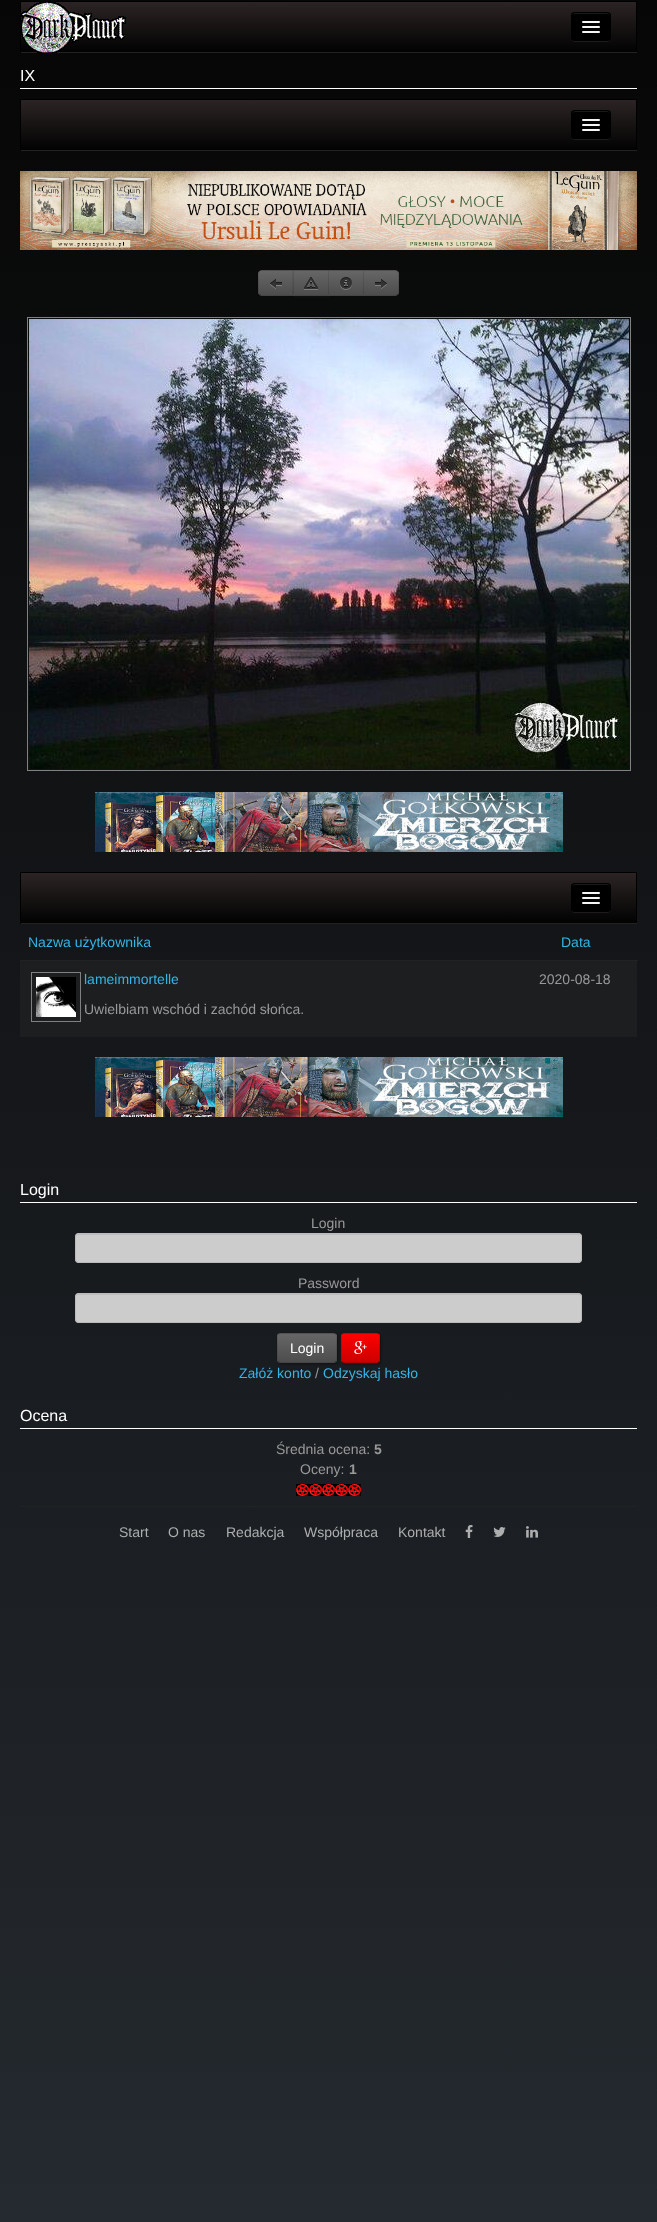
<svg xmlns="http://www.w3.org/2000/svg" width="657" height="2222">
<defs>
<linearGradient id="g1" gradientUnits="userSpaceOnUse" x1="328" y1="0" x2="329" y2="2222"><stop offset="0" stop-color="#060606"/><stop offset="1" stop-color="#252a30"/></linearGradient>
<linearGradient id="g2" gradientUnits="userSpaceOnUse" x1="329" y1="2" x2="329" y2="52"><stop offset="0" stop-color="#2c2424"/><stop offset="1" stop-color="#020202"/></linearGradient>
<clipPath id="clip1"><rect x="571" y="12" width="40" height="29" rx="4"/></clipPath>
<linearGradient id="g3" gradientUnits="userSpaceOnUse" x1="329" y1="100" x2="329" y2="150"><stop offset="0" stop-color="#2c2424"/><stop offset="1" stop-color="#020202"/></linearGradient>
<clipPath id="clip2"><rect x="571" y="110" width="40" height="29" rx="4"/></clipPath>
<clipPath id="clip3"><path d="M262 270h32v26h-32c-2 0-4-2-4-4v-18c0-2 2-4 4-4z"/></clipPath>
<linearGradient id="g4" gradientUnits="userSpaceOnUse" x1="276" y1="271" x2="276" y2="295"><stop offset="0" stop-color="#666"/><stop offset="1" stop-color="#4d4d4d"/></linearGradient>
<linearGradient id="g5" gradientUnits="userSpaceOnUse" x1="311" y1="271" x2="311" y2="295"><stop offset="0" stop-color="#666"/><stop offset="1" stop-color="#4d4d4d"/></linearGradient>
<linearGradient id="g6" gradientUnits="userSpaceOnUse" x1="346" y1="271" x2="346" y2="295"><stop offset="0" stop-color="#666"/><stop offset="1" stop-color="#4d4d4d"/></linearGradient>
<clipPath id="clip4"><path d="M363 270h32c2 0 4 2 4 4v18c0 2-2 4-4 4h-32z"/></clipPath>
<linearGradient id="g7" gradientUnits="userSpaceOnUse" x1="381" y1="271" x2="381" y2="295"><stop offset="0" stop-color="#666"/><stop offset="1" stop-color="#4d4d4d"/></linearGradient>
<linearGradient id="g8" gradientUnits="userSpaceOnUse" x1="329" y1="873" x2="329" y2="923"><stop offset="0" stop-color="#2c2424"/><stop offset="1" stop-color="#020202"/></linearGradient>
<clipPath id="clip5"><rect x="571" y="883" width="40" height="29" rx="4"/></clipPath>
<clipPath id="clip6"><rect x="277" y="1333" width="60" height="30" rx="4"/></clipPath>
<linearGradient id="g9" gradientUnits="userSpaceOnUse" x1="307" y1="1334" x2="307" y2="1362"><stop offset="0" stop-color="#666"/><stop offset="1" stop-color="#4d4d4d"/></linearGradient>
<clipPath id="clip7"><rect x="341" y="1333" width="39" height="30" rx="4"/></clipPath>
<linearGradient id="g10" gradientUnits="userSpaceOnUse" x1="361" y1="1334" x2="361" y2="1362"><stop offset="0" stop-color="#f00"/><stop offset="1" stop-color="#c00"/></linearGradient>
</defs>
<rect width="100%" height="100%" fill="#fff"/>
<rect width="657" height="2222" fill="url(#g1)"/>
<rect x="21" y="2" width="615" height="50" fill="url(#g2)"/>
<rect x="20" y="1" width="617" height="1" fill="#000"/>
<rect x="636" y="1" width="1" height="52" fill="#000"/>
<rect x="20" y="52" width="617" height="1" fill="#222"/>
<rect x="20" y="1" width="1" height="52" fill="#000"/>
<path d="M571 37c0 6 5 5 9 5h22c4 0 9 1 9-5c0 2-2 4-4 4h-32c-2 0-4-2-4-4z" fill="#1d1b1b"/>
<rect x="571" y="12" width="40" height="29" rx="4" fill="#000"/>
<g clip-path="url(#clip1)">
<rect x="571" y="13" width="40" height="27" fill="#000"/>
</g>
<path d="M575 14h32c2 0 3 1 3 3c0-5-4-4-8.5-4h-21c-4.5 0-8.5-1-8.5 4c0-2 1-3 3-3z" fill="#1a1a1a"/>
<rect x="582" y="21" width="18" height="2" rx="1" fill="#f5f5f5"/>
<rect x="582" y="26" width="18" height="2" rx="1" fill="#f5f5f5"/>
<rect x="582" y="31" width="18" height="2" rx="1" fill="#f5f5f5"/>
<image x="21" y="2" width="105" height="52" href="media/1.png"/>
<rect x="20" y="88" width="617" height="1" fill="#fff"/>
<text x="20" y="81" style="font-family:Liberation Sans;font-size:16px;fill:#fff">IX</text>
<rect x="21" y="100" width="615" height="50" fill="url(#g3)"/>
<rect x="20" y="99" width="617" height="1" fill="#000"/>
<rect x="636" y="99" width="1" height="52" fill="#000"/>
<rect x="20" y="150" width="617" height="1" fill="#222"/>
<rect x="20" y="99" width="1" height="52" fill="#000"/>
<path d="M571 135c0 6 5 5 9 5h22c4 0 9 1 9-5c0 2-2 4-4 4h-32c-2 0-4-2-4-4z" fill="#1d1b1b"/>
<rect x="571" y="110" width="40" height="29" rx="4" fill="#000"/>
<g clip-path="url(#clip2)">
<rect x="571" y="111" width="40" height="27" fill="#000"/>
</g>
<path d="M575 112h32c2 0 3 1 3 3c0-5-4-4-8.5-4h-21c-4.5 0-8.5-1-8.5 4c0-2 1-3 3-3z" fill="#1a1a1a"/>
<rect x="582" y="119" width="18" height="2" rx="1" fill="#f5f5f5"/>
<rect x="582" y="124" width="18" height="2" rx="1" fill="#f5f5f5"/>
<rect x="582" y="129" width="18" height="2" rx="1" fill="#f5f5f5"/>
<image x="20" y="171" width="617" height="79" href="media/2.png"/>
<path d="M262 270h32v26h-32c-2 0-4-2-4-4v-18c0-2 2-4 4-4z" fill="#5c5c5c"/>
<g clip-path="url(#clip3)">
<rect x="258" y="271" width="35" height="24" fill="url(#g4)"/>
</g>
<path d="M262 270c-1 0-2 .5-3 1l1 1c.5-.5 1-1 2-1h31l1-1z" fill="#0000001a"/>
<path d="M294 296l-1-1h-31c-1 0-1.5-.5-2-1l-1 1c1 .5 2 1 3 1z" fill="#00000040"/>
<path d="M258 274v18c0 1 .5 2 1 3l1-1c-.5-.5-1-1-1-2v-18c0-1 .5-1.5 1-2l-1-1c-.5 1-1 2-1 3z" fill="#0000001a"/>
<image x="270" y="279" width="12" height="10" href="media/3.png"/>
<rect x="294" y="271" width="36" height="26" fill="#111" filter="blur(1px)"/>
<rect x="293" y="270" width="35" height="26" fill="#5c5c5c"/>
<rect x="293" y="271" width="35" height="24" fill="url(#g5)"/>
<path d="M293 270h36l-1 1h-34z" fill="#535353"/>
<path d="M329 296h-36l1-1h34z" fill="#00000040"/>
<path d="M293 296v-26l1 1v24z" fill="#0000001a"/>
<image x="304" y="277" width="14" height="13" href="media/4.png"/>
<rect x="328" y="270" width="35" height="26" fill="#5c5c5c"/>
<rect x="328" y="271" width="35" height="24" fill="url(#g6)"/>
<path d="M328 270h36l-1 1h-34z" fill="#535353"/>
<path d="M364 296h-36l1-1h34z" fill="#00000040"/>
<path d="M328 296v-26l1 1v24z" fill="#0000001a"/>
<image x="340" y="277" width="12" height="13" href="media/5.png"/>
<path d="M363 270h32c2 0 4 2 4 4v18c0 2-2 4-4 4h-32z" fill="#5c5c5c"/>
<g clip-path="url(#clip4)">
<rect x="363" y="271" width="36" height="24" fill="url(#g7)"/>
</g>
<path d="M363 270l1 1h31c1 0 1.5 .5 2 1l1-1c-1-.5-2-1-3-1z" fill="#0000001a"/>
<path d="M399 292v-18c0-1-.5-2-1-3l-1 1c.5 .5 1 1 1 2v18c0 1-.5 1.5-1 2l1 1c.5-1 1-2 1-3z" fill="#0000001a"/>
<path d="M395 296c1 0 2-.5 3-1l-1-1c-.5 .5-1 1-2 1h-31l-1 1z" fill="#00000040"/>
<path d="M363 270v26l1-1v-24z" fill="#0000001a"/>
<image x="375" y="279" width="12" height="10" href="media/6.png"/>
<rect x="27.5" y="317.5" width="603" height="453" fill="none" stroke="#808080"/>
<image x="29" y="319" width="600" height="450" href="media/7.png"/>
<image x="95" y="792" width="468" height="60" href="media/8.png"/>
<rect x="21" y="873" width="615" height="50" fill="url(#g8)"/>
<rect x="20" y="872" width="617" height="1" fill="#000"/>
<rect x="636" y="872" width="1" height="52" fill="#000"/>
<rect x="20" y="923" width="617" height="1" fill="#222"/>
<rect x="20" y="872" width="1" height="52" fill="#000"/>
<path d="M571 908c0 6 5 5 9 5h22c4 0 9 1 9-5c0 2-2 4-4 4h-32c-2 0-4-2-4-4z" fill="#1d1b1b"/>
<rect x="571" y="883" width="40" height="29" rx="4" fill="#000"/>
<g clip-path="url(#clip5)">
<rect x="571" y="884" width="40" height="27" fill="#000"/>
</g>
<path d="M575 885h32c2 0 3 1 3 3c0-5-4-4-8.5-4h-21c-4.5 0-8.5-1-8.5 4c0-2 1-3 3-3z" fill="#1a1a1a"/>
<rect x="582" y="892" width="18" height="2" rx="1" fill="#f5f5f5"/>
<rect x="582" y="897" width="18" height="2" rx="1" fill="#f5f5f5"/>
<rect x="582" y="902" width="18" height="2" rx="1" fill="#f5f5f5"/>
<text x="28" y="947" style="font-family:Liberation Sans;font-size:14px;fill:#33b5e5">Nazwa użytkownika</text>
<text x="561" y="947" style="font-family:Liberation Sans;font-size:14px;fill:#33b5e5">Data</text>
<rect x="20" y="961" width="617" height="76" fill="#1c1e20"/>
<rect x="31.5" y="972.5" width="49" height="49" fill="none" stroke="#808080"/>
<image x="36" y="977" width="40" height="40" href="media/9.png"/>
<text x="84" y="984" style="font-family:Liberation Sans;font-size:14px;fill:#33b5e5">lameimmortelle</text>
<text x="84" y="1014" style="font-family:Liberation Sans;font-size:14px;fill:#999">Uwielbiam wschód i zachód słońca.</text>
<rect x="20" y="960" width="618" height="1" fill="#222"/>
<text x="539" y="984" style="font-family:Liberation Sans;font-size:14px;fill:#999">2020-08-18</text>
<image x="95" y="1057" width="468" height="60" href="media/8.png"/>
<rect x="20" y="1202" width="617" height="1" fill="#fff"/>
<text x="20" y="1195" style="font-family:Liberation Sans;font-size:16px;fill:#fff">Login</text>
<text x="311" y="1228" style="font-family:Liberation Sans;font-size:14px;fill:#999">Login</text>
<rect x="75" y="1233" width="507" height="30" rx="4" fill="#ccc"/>
<path d="M79 1235h499c2 0 3 1 3 3c0-2-1-4-3-4h-499c-2 0-3 2-3 4c0-2 1-3 3-3z" fill="#bdbdbd"/>
<rect x="75.5" y="1233.5" width="506" height="29" rx="3.5" fill="none" stroke="#bbb"/>
<text x="298" y="1288" style="font-family:Liberation Sans;font-size:14px;fill:#999">Password</text>
<rect x="75" y="1293" width="507" height="30" rx="4" fill="#ccc"/>
<path d="M79 1295h499c2 0 3 1 3 3c0-2-1-4-3-4h-499c-2 0-3 2-3 4c0-2 1-3 3-3z" fill="#bdbdbd"/>
<rect x="75.5" y="1293.5" width="506" height="29" rx="3.5" fill="none" stroke="#bbb"/>
<rect x="278" y="1334" width="60" height="30" rx="4" fill="#111" filter="blur(1px)"/>
<rect x="277" y="1333" width="60" height="30" rx="4" fill="#5c5c5c"/>
<g clip-path="url(#clip6)">
<rect x="277" y="1334" width="60" height="28" fill="url(#g9)"/>
</g>
<path d="M335.5 1361.5l-2 1h-53l-2-1" fill="none" stroke="#00000040"/>
<path d="M278.5 1361.5c-2-2-1-10.5-1-13.5c0-15-2.5-14.5 12-14.5h35c14.5 0 12-.5 12 14.5c0 3 1 11.5-1 13.5" fill="none" stroke="#0000001a"/>
<text x="290" y="1353" style="font-family:Liberation Sans;font-size:14px;fill:#fff">Login</text>
<rect x="342" y="1334" width="39" height="30" rx="4" fill="#111" filter="blur(1px)"/>
<rect x="341" y="1333" width="39" height="30" rx="4" fill="#eb0000"/>
<g clip-path="url(#clip7)">
<rect x="341" y="1334" width="39" height="28" fill="url(#g10)"/>
</g>
<path d="M378.5 1361.5c-.5 .5-1.5 1-2.5 1h-31c-1 0-2-.5-2.5-1" fill="none" stroke="#00000040"/>
<path d="M342.5 1361.5c-.5-.5-1-1.5-1-2.5v-22c0-1 .5-2 1-2.5c.5-.5 1.5-1 2.5-1h31c1 0 2 .5 2.5 1c.5 .5 1 1.5 1 2.5v22c0 1-.5 2-1 2.5" fill="none" stroke="#0000001a"/>
<image x="354" y="1341" width="13" height="13" href="media/10.png"/>
<text x="239" y="1378" style="font-family:Liberation Sans;font-size:14px;fill:#33b5e5">Załóż konto</text>
<text x="315" y="1378" style="font-family:Liberation Sans;font-size:14px;fill:#999">/</text>
<text x="323" y="1378" style="font-family:Liberation Sans;font-size:14px;fill:#33b5e5">Odzyskaj hasło</text>
<rect x="20" y="1428" width="617" height="1" fill="#fff"/>
<text x="20" y="1421" style="font-family:Liberation Sans;font-size:16px;fill:#fff">Ocena</text>
<text x="276" y="1454" style="font-family:Liberation Sans;font-size:14px;fill:#999">Średnia ocena:</text>
<text x="374" y="1454" style="font-family:Liberation Sans;font-size:14px;font-weight:bold;fill:#999">5</text>
<text x="300" y="1474" style="font-family:Liberation Sans;font-size:14px;fill:#999">Oceny:</text>
<text x="349" y="1474" style="font-family:Liberation Sans;font-size:14px;font-weight:bold;fill:#999">1</text>
<image x="296" y="1484" width="13" height="12" href="media/11.png"/>
<image x="309" y="1484" width="13" height="12" href="media/11.png"/>
<image x="322" y="1484" width="13" height="12" href="media/11.png"/>
<image x="335" y="1484" width="13" height="12" href="media/11.png"/>
<image x="348" y="1484" width="13" height="12" href="media/11.png"/>
<rect x="20" y="1506" width="617" height="1" fill="#222"/>
<text x="119" y="1537" style="font-family:Liberation Sans;font-size:14px;fill:#adafae">Start</text>
<text x="168" y="1537" style="font-family:Liberation Sans;font-size:14px;fill:#adafae">O nas</text>
<text x="226" y="1537" style="font-family:Liberation Sans;font-size:14px;fill:#adafae">Redakcja</text>
<text x="304" y="1537" style="font-family:Liberation Sans;font-size:14px;fill:#adafae">Współpraca</text>
<text x="398" y="1537" style="font-family:Liberation Sans;font-size:14px;fill:#adafae">Kontakt</text>
<image x="465" y="1525" width="8" height="13" href="media/12.png"/>
<image x="493" y="1527" width="13" height="10" href="media/13.png"/>
<image x="526" y="1526" width="12" height="12" href="media/14.png"/>
</svg>
